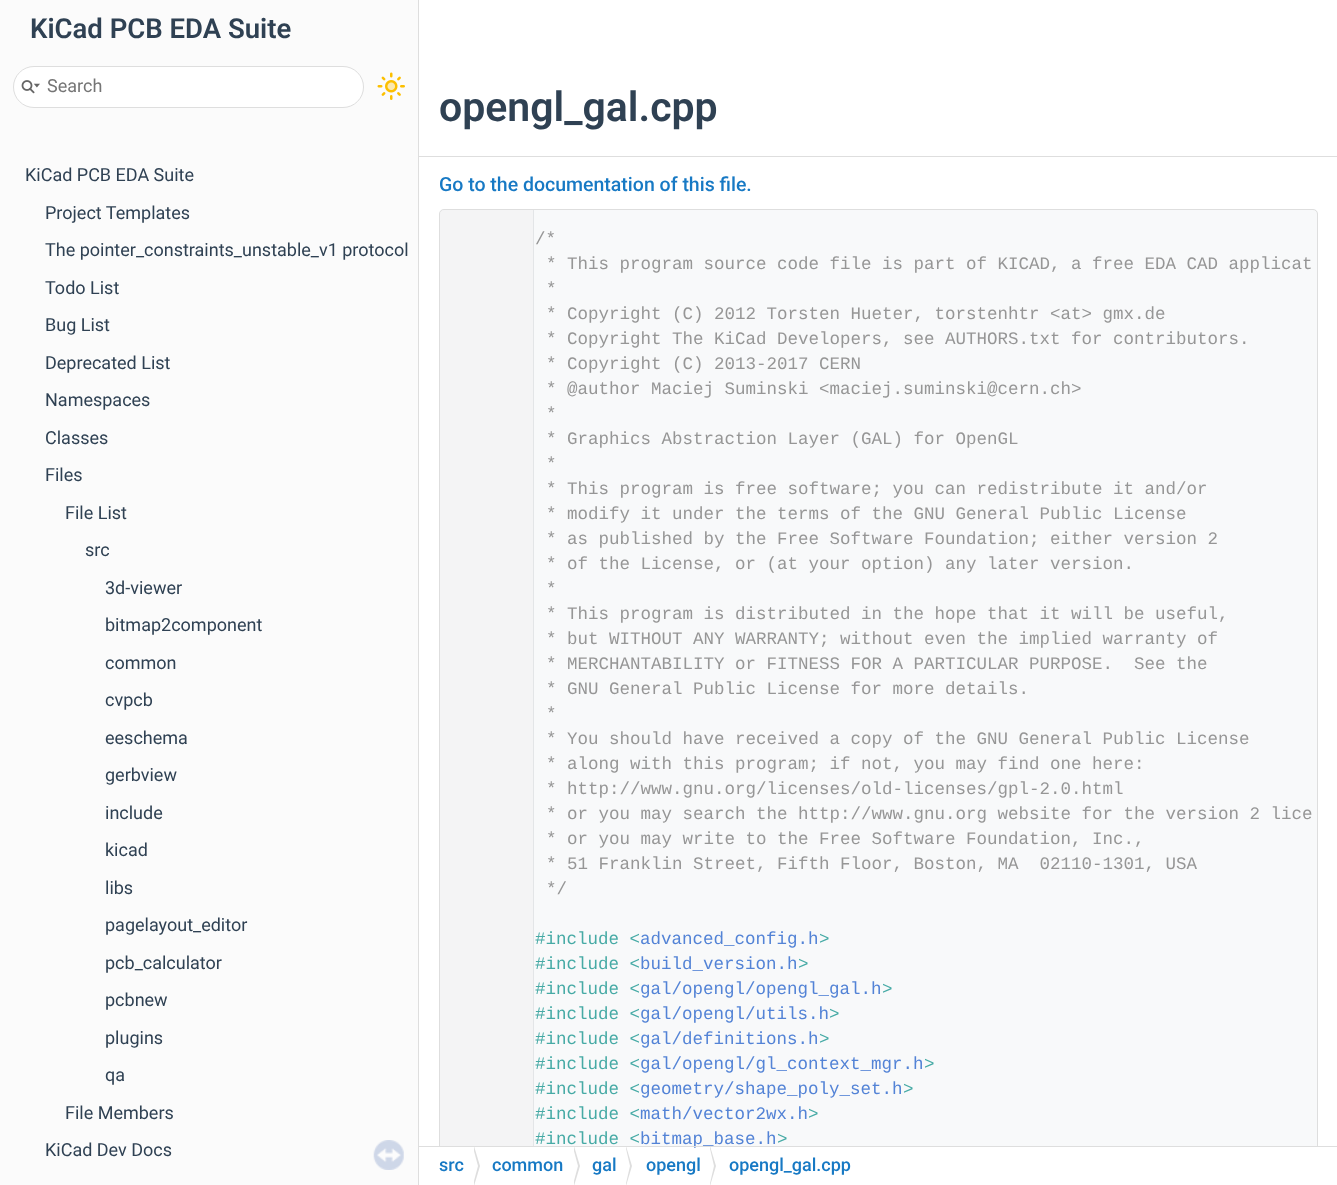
<svg xmlns="http://www.w3.org/2000/svg" width="1337" height="1185">
<defs>
<clipPath id="clip1"><rect x="419" width="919" height="1146"/></clipPath>
<clipPath id="clip2"><rect x="419" y="1148" width="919" height="37"/></clipPath>
</defs>
<rect width="100%" height="100%" fill="#fff"/>
<rect width="418" height="1185" fill="#fbfbfb"/>
<text x="30" y="38" style="font-family:Roboto;font-size:27.5px;font-weight:600;fill:#2f4153">KiCad PCB EDA Suite</text>
<rect x="13.5" y="66.5" width="350" height="41" rx="20.5" fill="#fff" stroke="#dedede"/>
<image x="21" y="80" width="19" height="14" href="media/1.png"/>
<text x="47" y="92" style="font-family:Roboto;font-size:18px;fill:#757575">Search</text>
<image x="377" y="72" width="28" height="28" href="media/2.png"/>
<text x="25" y="181" style="font-family:Roboto;font-size:18px;fill:#2f4153">KiCad PCB EDA Suite</text>
<text x="45" y="219" style="font-family:Roboto;font-size:18px;fill:#2f4153">Project Templates</text>
<text x="45" y="256" style="font-family:Roboto;font-size:18px;fill:#2f4153">The pointer_constraints_unstable_v1 protocol</text>
<text x="45" y="294" style="font-family:Roboto;font-size:18px;fill:#2f4153">Todo List</text>
<text x="45" y="331" style="font-family:Roboto;font-size:18px;fill:#2f4153">Bug List</text>
<text x="45" y="369" style="font-family:Roboto;font-size:18px;fill:#2f4153">Deprecated List</text>
<text x="45" y="406" style="font-family:Roboto;font-size:18px;fill:#2f4153">Namespaces</text>
<text x="45" y="444" style="font-family:Roboto;font-size:18px;fill:#2f4153">Classes</text>
<text x="45" y="481" style="font-family:Roboto;font-size:18px;fill:#2f4153">Files</text>
<text x="65" y="519" style="font-family:Roboto;font-size:18px;fill:#2f4153">File List</text>
<text x="85" y="556" style="font-family:Roboto;font-size:18px;fill:#2f4153">src</text>
<text x="105" y="594" style="font-family:Roboto;font-size:18px;fill:#2f4153">3d-viewer</text>
<text x="105" y="631" style="font-family:Roboto;font-size:18px;fill:#2f4153">bitmap2component</text>
<text x="105" y="669" style="font-family:Roboto;font-size:18px;fill:#2f4153">common</text>
<text x="105" y="706" style="font-family:Roboto;font-size:18px;fill:#2f4153">cvpcb</text>
<text x="105" y="744" style="font-family:Roboto;font-size:18px;fill:#2f4153">eeschema</text>
<text x="105" y="781" style="font-family:Roboto;font-size:18px;fill:#2f4153">gerbview</text>
<text x="105" y="819" style="font-family:Roboto;font-size:18px;fill:#2f4153">include</text>
<text x="105" y="856" style="font-family:Roboto;font-size:18px;fill:#2f4153">kicad</text>
<text x="105" y="894" style="font-family:Roboto;font-size:18px;fill:#2f4153">libs</text>
<text x="105" y="931" style="font-family:Roboto;font-size:18px;fill:#2f4153">pagelayout_editor</text>
<text x="105" y="969" style="font-family:Roboto;font-size:18px;fill:#2f4153">pcb_calculator</text>
<text x="105" y="1006" style="font-family:Roboto;font-size:18px;fill:#2f4153">pcbnew</text>
<text x="105" y="1044" style="font-family:Roboto;font-size:18px;fill:#2f4153">plugins</text>
<text x="105" y="1081" style="font-family:Roboto;font-size:18px;fill:#2f4153">qa</text>
<text x="65" y="1119" style="font-family:Roboto;font-size:18px;fill:#2f4153">File Members</text>
<text x="45" y="1156" style="font-family:Roboto;font-size:18px;fill:#2f4153">KiCad Dev Docs</text>
<image x="373" y="1140" width="31" height="30" href="media/3.png"/>
<path d="M418-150v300h1v735v-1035z" fill="#dedede"/>
<rect x="418" y="150" width="1" height="1035" fill="#dedede"/>
<rect x="419" y="156" width="918" height="1" fill="#dedede"/>
<text x="439" y="121" style="font-family:Roboto;font-size:41px;font-weight:600;fill:#2f4153">opengl_gal.cpp</text>
<text x="439" y="191" style="font-family:Roboto;font-size:19.5px;font-weight:500;fill:#1779c4">Go to the documentation of this file.</text>
<path d="M444 209h869c3 0 5 2 5 5v932h-879v-932c0-3 2-5 5-5z" fill="#f8f9fa"/>
<g clip-path="url(#clip1)">
<rect x="439.5" y="209.5" width="878" height="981" rx="4.5" fill="none" stroke="#dedede"/>
<path d="M444 210c-2 0-4 2-4 4v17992c0 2 2 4 4 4h90v-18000z" fill="#e3e5e7"/>
<path d="M444 210c-2 0-4 2-4 4v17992c0 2 2 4 4 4h89v-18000z" fill="#f4f4f5"/>
</g>
<text x="535" y="244" style="font-family:Liberation Mono;font-size:17.5px;fill:#969696">/*</text>
<text x="546" y="269" style="font-family:Liberation Mono;font-size:17.5px;fill:#969696">* This program source code file is part of KICAD, a free EDA CAD applicat</text>
<text x="546" y="294" style="font-family:Liberation Mono;font-size:17.5px;fill:#969696">*</text>
<text x="546" y="319" style="font-family:Liberation Mono;font-size:17.5px;fill:#969696">* Copyright (C) 2012 Torsten Hueter, torstenhtr &lt;at&gt; gmx.de</text>
<text x="546" y="344" style="font-family:Liberation Mono;font-size:17.5px;fill:#969696">* Copyright The KiCad Developers, see AUTHORS.txt for contributors.</text>
<text x="546" y="369" style="font-family:Liberation Mono;font-size:17.5px;fill:#969696">* Copyright (C) 2013-2017 CERN</text>
<text x="546" y="394" style="font-family:Liberation Mono;font-size:17.5px;fill:#969696">* @author Maciej Suminski &lt;maciej.suminski@cern.ch&gt;</text>
<text x="546" y="419" style="font-family:Liberation Mono;font-size:17.5px;fill:#969696">*</text>
<text x="546" y="444" style="font-family:Liberation Mono;font-size:17.5px;fill:#969696">* Graphics Abstraction Layer (GAL) for OpenGL</text>
<text x="546" y="469" style="font-family:Liberation Mono;font-size:17.5px;fill:#969696">*</text>
<text x="546" y="494" style="font-family:Liberation Mono;font-size:17.5px;fill:#969696">* This program is free software; you can redistribute it and/or</text>
<text x="546" y="519" style="font-family:Liberation Mono;font-size:17.5px;fill:#969696">* modify it under the terms of the GNU General Public License</text>
<text x="546" y="544" style="font-family:Liberation Mono;font-size:17.5px;fill:#969696">* as published by the Free Software Foundation; either version 2</text>
<text x="546" y="569" style="font-family:Liberation Mono;font-size:17.5px;fill:#969696">* of the License, or (at your option) any later version.</text>
<text x="546" y="594" style="font-family:Liberation Mono;font-size:17.5px;fill:#969696">*</text>
<text x="546" y="619" style="font-family:Liberation Mono;font-size:17.5px;fill:#969696">* This program is distributed in the hope that it will be useful,</text>
<text x="546" y="644" style="font-family:Liberation Mono;font-size:17.5px;fill:#969696">* but WITHOUT ANY WARRANTY; without even the implied warranty of</text>
<text x="546" y="669" style="font-family:Liberation Mono;font-size:17.5px;fill:#969696" xml:space="preserve">* MERCHANTABILITY or FITNESS FOR A PARTICULAR PURPOSE.  See the</text>
<text x="546" y="694" style="font-family:Liberation Mono;font-size:17.5px;fill:#969696">* GNU General Public License for more details.</text>
<text x="546" y="719" style="font-family:Liberation Mono;font-size:17.5px;fill:#969696">*</text>
<text x="546" y="744" style="font-family:Liberation Mono;font-size:17.5px;fill:#969696">* You should have received a copy of the GNU General Public License</text>
<text x="546" y="769" style="font-family:Liberation Mono;font-size:17.5px;fill:#969696">* along with this program; if not, you may find one here:</text>
<text x="546" y="794" style="font-family:Liberation Mono;font-size:17.5px;fill:#969696">* http://www.gnu.org/licenses/old-licenses/gpl-2.0.html</text>
<text x="546" y="819" style="font-family:Liberation Mono;font-size:17.5px;fill:#969696">* or you may search the http://www.gnu.org website for the version 2 lice</text>
<text x="546" y="844" style="font-family:Liberation Mono;font-size:17.5px;fill:#969696">* or you may write to the Free Software Foundation, Inc.,</text>
<text x="546" y="869" style="font-family:Liberation Mono;font-size:17.5px;fill:#969696" xml:space="preserve">* 51 Franklin Street, Fifth Floor, Boston, MA  02110-1301, USA</text>
<text x="546" y="894" style="font-family:Liberation Mono;font-size:17.5px;fill:#969696">*/</text>
<text x="535" y="944" style="font-family:Liberation Mono;font-size:17.5px;fill:#46aaa5">#include &lt;</text>
<text x="640" y="944" style="font-family:Liberation Mono;font-size:17.5px;fill:#5383d6">advanced_config.h</text>
<text x="819" y="944" style="font-family:Liberation Mono;font-size:17.5px;fill:#46aaa5">&gt;</text>
<text x="535" y="969" style="font-family:Liberation Mono;font-size:17.5px;fill:#46aaa5">#include &lt;</text>
<text x="640" y="969" style="font-family:Liberation Mono;font-size:17.5px;fill:#5383d6">build_version.h</text>
<text x="798" y="969" style="font-family:Liberation Mono;font-size:17.5px;fill:#46aaa5">&gt;</text>
<text x="535" y="994" style="font-family:Liberation Mono;font-size:17.5px;fill:#46aaa5">#include &lt;</text>
<text x="640" y="994" style="font-family:Liberation Mono;font-size:17.5px;fill:#5383d6">gal/opengl/opengl_gal.h</text>
<text x="882" y="994" style="font-family:Liberation Mono;font-size:17.5px;fill:#46aaa5">&gt;</text>
<text x="535" y="1019" style="font-family:Liberation Mono;font-size:17.5px;fill:#46aaa5">#include &lt;</text>
<text x="640" y="1019" style="font-family:Liberation Mono;font-size:17.5px;fill:#5383d6">gal/opengl/utils.h</text>
<text x="829" y="1019" style="font-family:Liberation Mono;font-size:17.5px;fill:#46aaa5">&gt;</text>
<text x="535" y="1044" style="font-family:Liberation Mono;font-size:17.5px;fill:#46aaa5">#include &lt;</text>
<text x="640" y="1044" style="font-family:Liberation Mono;font-size:17.5px;fill:#5383d6">gal/definitions.h</text>
<text x="819" y="1044" style="font-family:Liberation Mono;font-size:17.5px;fill:#46aaa5">&gt;</text>
<text x="535" y="1069" style="font-family:Liberation Mono;font-size:17.5px;fill:#46aaa5">#include &lt;</text>
<text x="640" y="1069" style="font-family:Liberation Mono;font-size:17.5px;fill:#5383d6">gal/opengl/gl_context_mgr.h</text>
<text x="924" y="1069" style="font-family:Liberation Mono;font-size:17.5px;fill:#46aaa5">&gt;</text>
<text x="535" y="1094" style="font-family:Liberation Mono;font-size:17.5px;fill:#46aaa5">#include &lt;</text>
<text x="640" y="1094" style="font-family:Liberation Mono;font-size:17.5px;fill:#5383d6">geometry/shape_poly_set.h</text>
<text x="903" y="1094" style="font-family:Liberation Mono;font-size:17.5px;fill:#46aaa5">&gt;</text>
<text x="535" y="1119" style="font-family:Liberation Mono;font-size:17.5px;fill:#46aaa5">#include &lt;</text>
<text x="640" y="1119" style="font-family:Liberation Mono;font-size:17.5px;fill:#5383d6">math/vector2wx.h</text>
<text x="808" y="1119" style="font-family:Liberation Mono;font-size:17.5px;fill:#46aaa5">&gt;</text>
<text x="535" y="1144" style="font-family:Liberation Mono;font-size:17.5px;fill:#46aaa5">#include &lt;</text>
<text x="640" y="1144" style="font-family:Liberation Mono;font-size:17.5px;fill:#5383d6">bitmap_base.h</text>
<text x="777" y="1144" style="font-family:Liberation Mono;font-size:17.5px;fill:#46aaa5">&gt;</text>
<rect x="419" y="1146" width="918" height="1" fill="#dedede"/>
<text x="439" y="1171" style="font-family:Roboto;font-size:18px;font-weight:500;fill:#1779c4">src</text>
<path d="M474 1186v-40l6 20z" fill="#dedede"/>
<g clip-path="url(#clip2)">
<path d="M471 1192v-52l7 26z" fill="#fff"/>
</g>
<text x="492" y="1171" style="font-family:Roboto;font-size:18px;font-weight:500;fill:#1779c4">common</text>
<text x="592" y="1171" style="font-family:Roboto;font-size:18px;font-weight:500;fill:#1779c4">gal</text>
<path d="M574 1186v-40l6 20zm52 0v-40l6 20z" fill="#dedede"/>
<g clip-path="url(#clip2)">
<path d="M571 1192v-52l7 26zm53 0v-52l6 26z" fill="#fff"/>
</g>
<text x="646" y="1171" style="font-family:Roboto;font-size:18px;font-weight:500;fill:#1779c4">opengl</text>
<path d="M710 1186v-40l6 20z" fill="#dedede"/>
<g clip-path="url(#clip2)">
<path d="M708 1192v-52l6 26z" fill="#fff"/>
</g>
<text x="729" y="1171" style="font-family:Roboto;font-size:18px;font-weight:500;fill:#1779c4">opengl_gal.cpp</text>
</svg>
